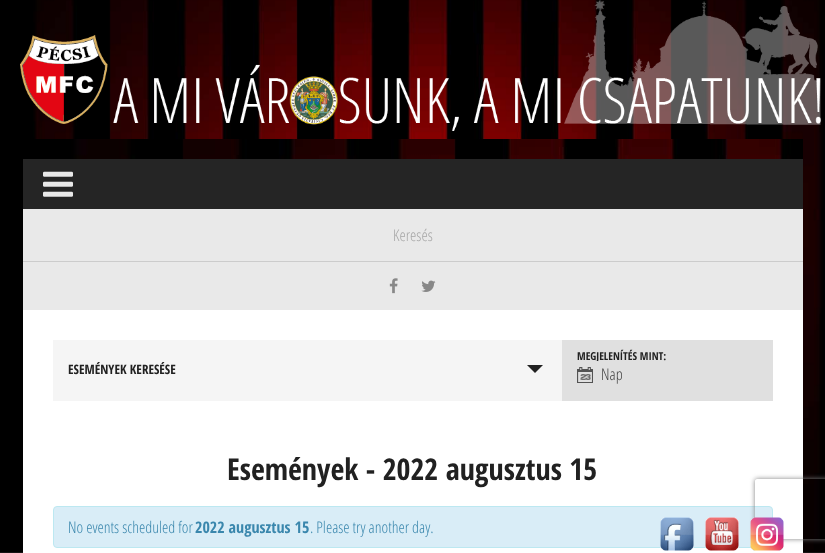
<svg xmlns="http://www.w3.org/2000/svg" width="825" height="553">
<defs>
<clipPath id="clip1"><path d="M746 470h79v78h-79zm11 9h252c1 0 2 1 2 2v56c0 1-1 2-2 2h-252c-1 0-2-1-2-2v-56c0-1 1-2 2-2z" clip-rule="evenodd"/></clipPath>
</defs>
<rect width="100%" height="100%" fill="#fff"/>
<image x="0" y="0" width="825" height="553" href="media/1.png"/>
<image x="20" y="0" width="801" height="131" href="media/2.png"/>
<rect x="23" y="310" width="780" height="243" fill="#fff"/>
<image x="23" y="139" width="780" height="20" href="media/3.png"/>
<rect x="23" y="159" width="780" height="50" fill="#252525"/>
<image x="43" y="171" width="30" height="26" href="media/4.png"/>
<rect x="23" y="209" width="780" height="101" fill="#e9e9e9"/>
<rect x="23" y="261" width="780" height="1" fill="#ccc"/>
<text x="393" y="241" style="font-family:Open Sans Condensed;font-size:16px;font-weight:300;fill:#a6a6a6">Keresés</text>
<image x="389" y="278" width="9" height="16" href="media/5.png"/>
<image x="421" y="280" width="15" height="12" href="media/6.png"/>
<rect x="53" y="340" width="509" height="61" fill="#f5f5f5"/>
<text x="68" y="374" style="font-family:Open Sans Condensed;font-size:13px;font-weight:bold;fill:#212121">ESEMÉNYEK KERESÉSE</text>
<path d="M527 365h16l-8 8z" fill="#212121"/>
<rect x="562" y="340" width="211" height="61" fill="#e0e0e0"/>
<text x="577" y="360" style="font-family:Open Sans Condensed;font-size:11px;font-weight:bold;fill:#212121">MEGJELENÍTÉS MINT:</text>
<rect x="594" y="361" width="4" height="2" fill="#e0e0e0"/>
<image x="577" y="367" width="16" height="16" href="media/7.png"/>
<text x="601" y="380" style="font-family:Open Sans Condensed;font-size:16px;font-weight:300;fill:#444">Nap</text>
<text x="227" y="480" style="font-family:Open Sans Condensed;font-size:30px;font-weight:bold;fill:#212121">Események - 2022 augusztus 15</text>
<rect x="53.5" y="506.5" width="719" height="41" rx="3.5" fill="#d9edf7" stroke="#bce8f1"/>
<text x="68" y="533" style="font-family:Open Sans Condensed;font-size:16px;font-weight:300;fill:#3a87ad">No events scheduled for</text>
<text x="195" y="533" style="font-family:Open Sans Condensed;font-size:16px;font-weight:bold;fill:#3a87ad">2022 augusztus 15</text>
<text x="310" y="533" style="font-family:Open Sans Condensed;font-size:16px;font-weight:300;fill:#3a87ad">. Please try another day.</text>
<image x="660" y="517" width="34" height="34" href="media/8.png"/>
<image x="705" y="517" width="34" height="34" href="media/9.png"/>
<g clip-path="url(#clip1)">
<rect x="755" y="479" width="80" height="60" rx="2" fill="#808080" filter="blur(2.5px)"/>
</g>
<image x="750" y="517" width="34" height="34" href="media/10.png"/>
</svg>
